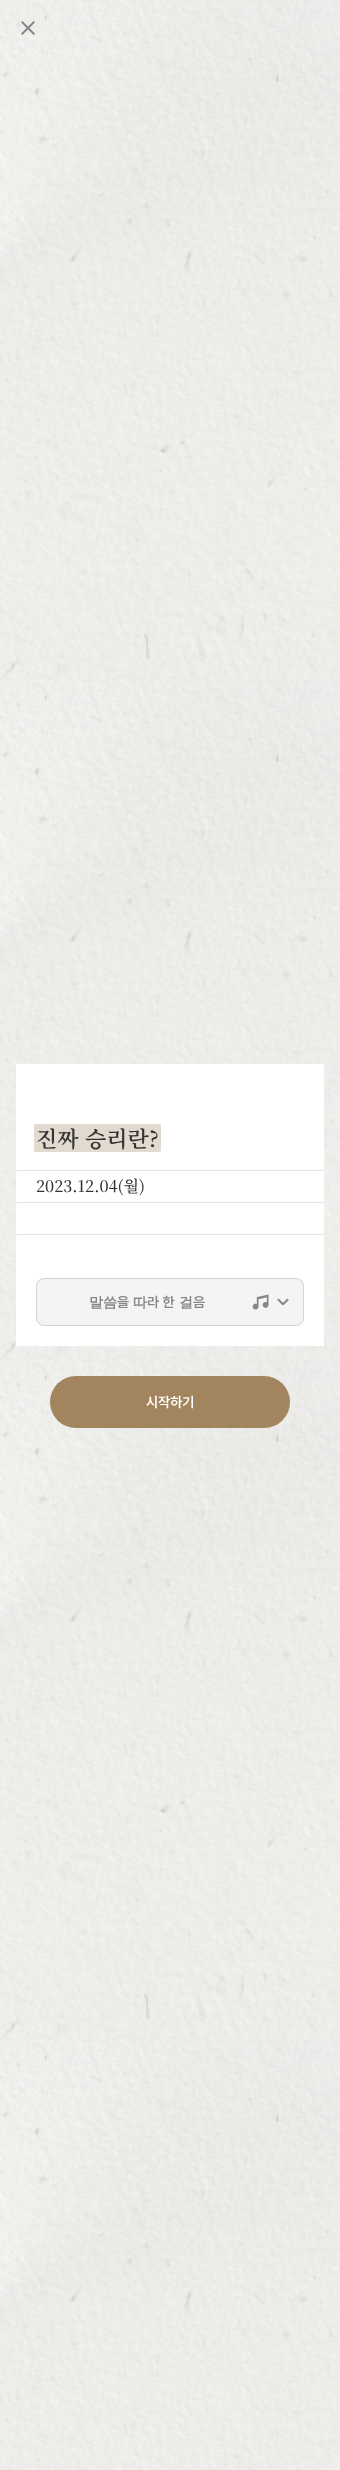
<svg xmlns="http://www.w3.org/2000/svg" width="340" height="2470">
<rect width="100%" height="100%" fill="#fff"/>
<image x="0" y="0" width="340" height="2470" href="media/1.png"/>
<image x="21" y="21" width="14" height="14" href="media/2.png"/>
<rect x="16" y="1064" width="308" height="282" fill="#fff"/>
<rect x="34" y="1124" width="127" height="28" rx="2" fill="#e3dacf"/>
<text x="36" y="1147" word-spacing="1" style="font-family:Noto Serif KR;font-size:22px;font-weight:600;fill:#333">진짜 승리란?</text>
<rect x="16" y="1170" width="308" height="1" rx="0.5" fill="#e4e4e6"/>
<rect x="16" y="1202" width="308" height="1" rx="0.5" fill="#e4e4e6"/>
<rect x="16" y="1234" width="308" height="1" rx="0.5" fill="#e4e4e6"/>
<text x="36" y="1192" style="font-family:Noto Serif KR;font-size:16px;font-weight:500;fill:#333">2023.12.04(월)</text>
<rect x="36" y="1278" width="268" height="48" rx="8" fill="#f4f4f5"/>
<rect x="36.5" y="1278.5" width="267" height="47" rx="7.5" fill="none" stroke="#3c3c432e"/>
<text x="89" y="1307" style="font-family:WenQuanYi Zen Hei;font-size:14px;font-weight:bold;fill:#86868a">말씀</text>
<text x="117" y="1307" style="font-family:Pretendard;font-size:14px;font-weight:600;fill:#86868a">을</text>
<text x="133" y="1307" style="font-family:WenQuanYi Zen Hei;font-size:14px;font-weight:bold;fill:#86868a">따</text>
<text x="147" y="1307" style="font-family:Pretendard;font-size:14px;font-weight:600;fill:#86868a">라 한</text>
<text x="179" y="1307" style="font-family:WenQuanYi Zen Hei;font-size:14px;font-weight:bold;fill:#86868a">걸</text>
<text x="193" y="1307" style="font-family:Pretendard;font-size:14px;font-weight:600;fill:#86868a">음</text>
<image x="252" y="1294" width="17" height="16" href="media/3.png"/>
<image x="277" y="1298" width="12" height="8" href="media/4.png"/>
<rect x="50" y="1376" width="240" height="52" rx="26" fill="#a2845e"/>
<text x="146" y="1407" style="font-family:Pretendard;font-size:14px;font-weight:600;fill:#fff">시작하기</text>
</svg>
